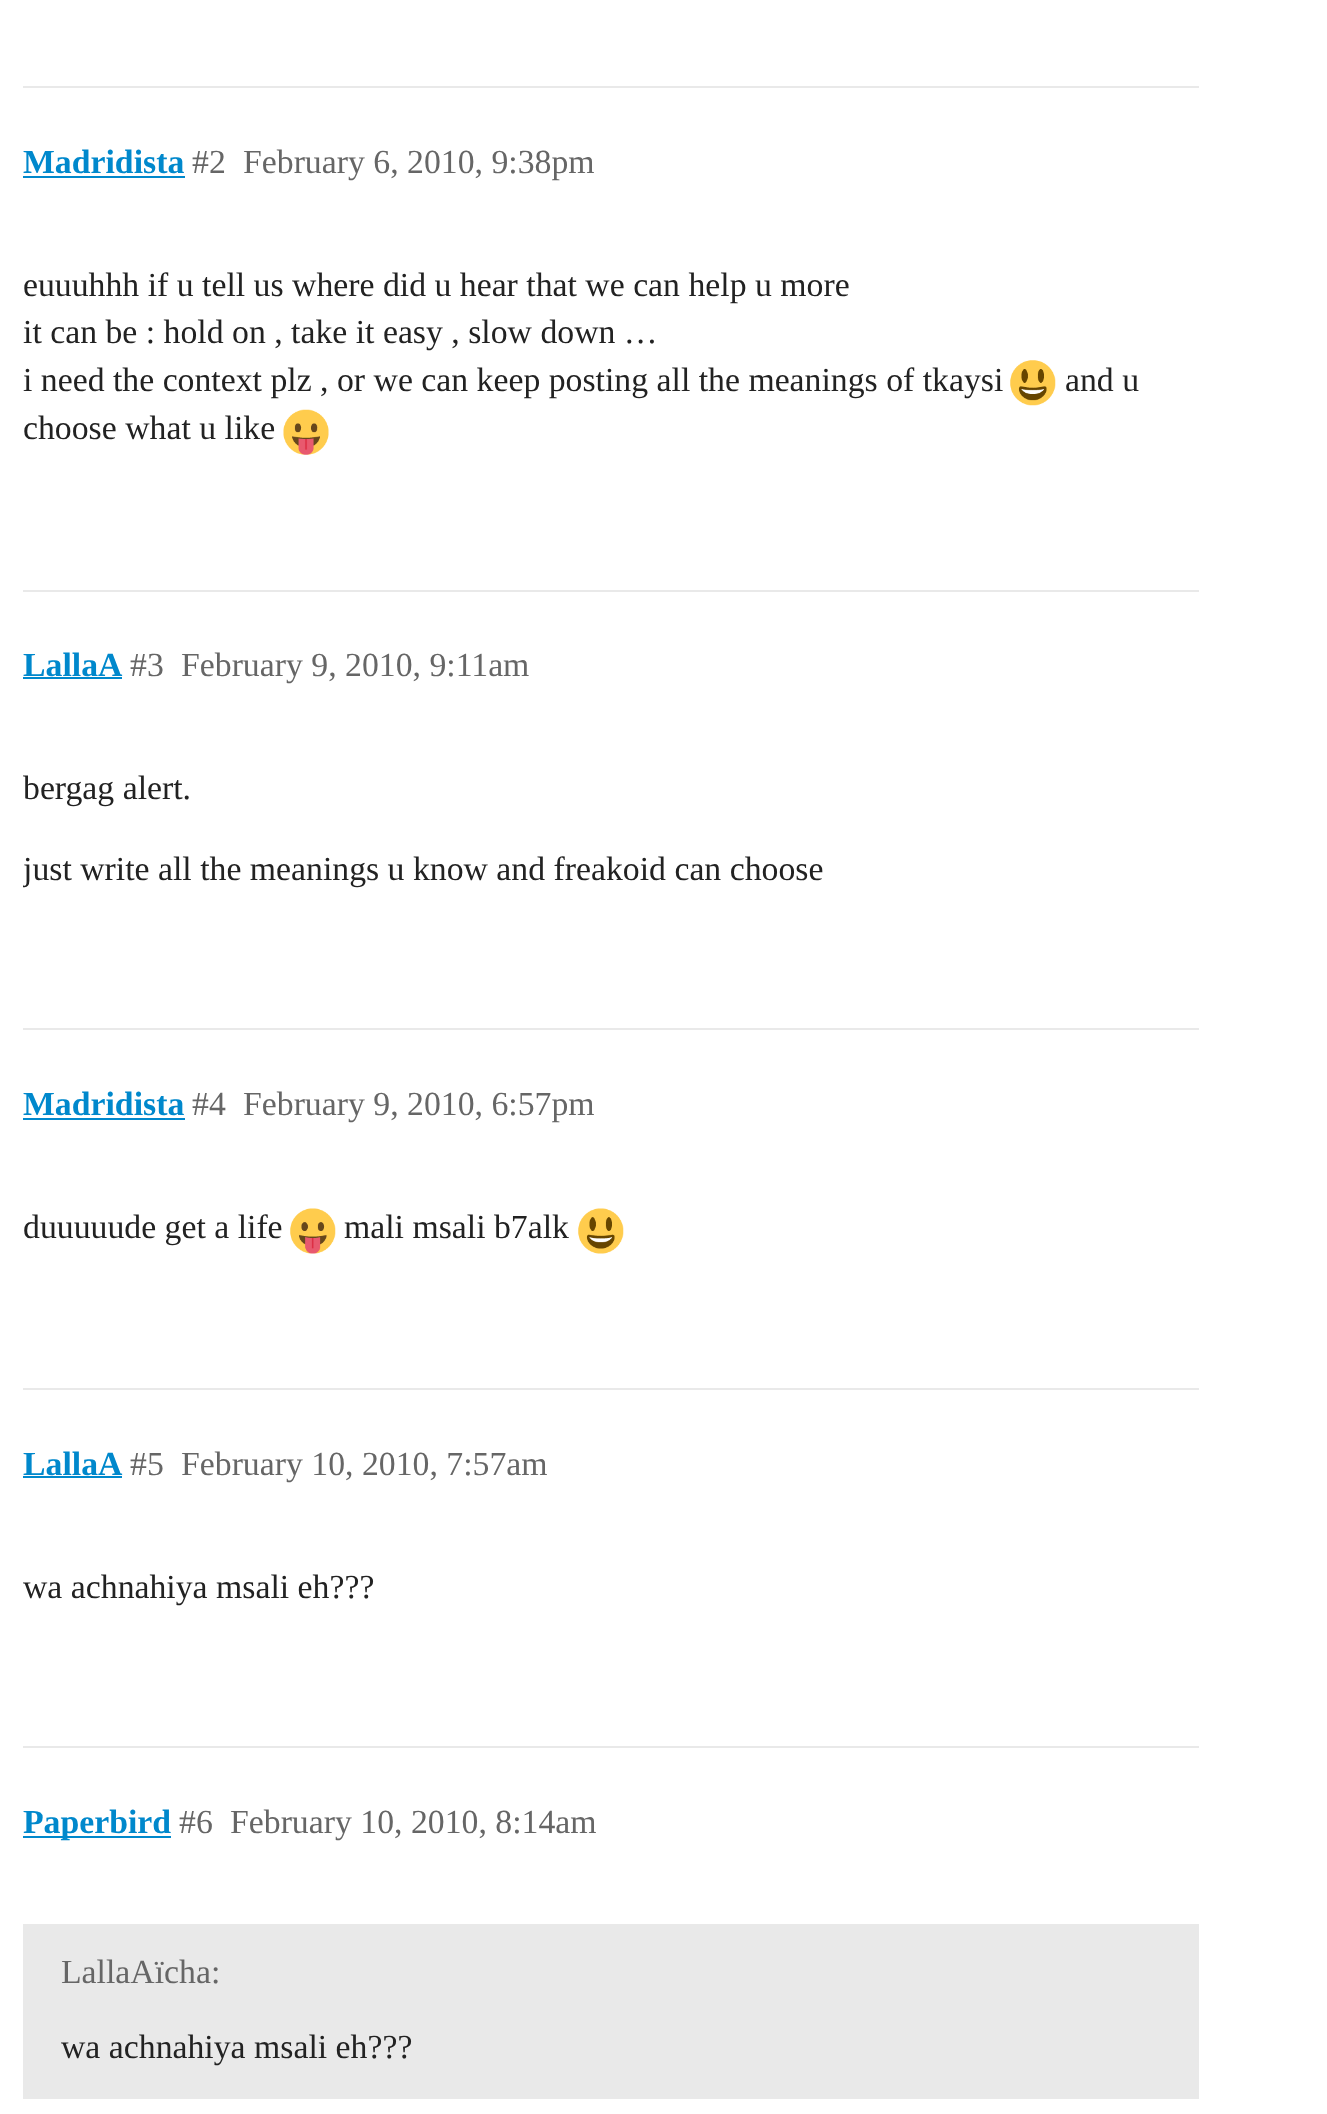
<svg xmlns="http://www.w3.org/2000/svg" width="1327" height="2114">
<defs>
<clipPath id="clip1"><rect x="23" y="731" width="1176" height="196"/></clipPath>
</defs>
<rect width="100%" height="100%" fill="#fff"/>
<rect x="23" y="86" width="1176" height="2" fill="#e9e9e9"/>
<text x="23" y="173" style="font-family:Liberation Serif;font-size:33.75px;font-weight:bold;fill:#08c">Madridista</text>
<rect x="23" y="176" width="162" height="2" fill="#08c"/>
<text x="192" y="173" style="font-family:Liberation Serif;font-size:33.75px;fill:#666">#2</text>
<text x="243" y="173" style="font-family:Liberation Serif;font-size:33.75px;fill:#666">February 6, 2010, 9:38pm</text>
<text x="23" y="296" style="font-family:Liberation Serif;font-size:33.75px;fill:#222">euuuhhh if u tell us where did u hear that we can help u more</text>
<text x="23" y="343" style="font-family:Liberation Serif;font-size:33.75px;fill:#222">it can be : hold on , take it easy , slow down …</text>
<text x="23" y="391" style="font-family:Liberation Serif;font-size:33.75px;fill:#222">i need the context plz , or we can keep posting all the meanings of tkaysi</text>
<image x="1010" y="360" width="46" height="46" href="media/1.png"/>
<text x="1065" y="391" style="font-family:Liberation Serif;font-size:33.75px;fill:#222">and u</text>
<text x="23" y="439" style="font-family:Liberation Serif;font-size:33.75px;fill:#222">choose what u like</text>
<image x="283" y="409" width="46" height="46" href="media/2.png"/>
<rect x="23" y="590" width="1176" height="2" fill="#e9e9e9"/>
<text x="23" y="676" style="font-family:Liberation Serif;font-size:33.75px;font-weight:bold;fill:#08c">LallaA</text>
<rect x="23" y="677" width="99" height="2" fill="#08c"/>
<text x="130" y="676" style="font-family:Liberation Serif;font-size:33.75px;fill:#666">#3</text>
<text x="181" y="676" style="font-family:Liberation Serif;font-size:33.75px;fill:#666">February 9, 2010, 9:11am</text>
<text x="23" y="799" style="font-family:Liberation Serif;font-size:33.75px;fill:#222">bergag alert.</text>
<g clip-path="url(#clip1)">
<text x="23" y="880" style="font-family:Liberation Serif;font-size:33.75px;fill:#222">just write all the meanings u know and freakoid can choose</text>
</g>
<rect x="23" y="1028" width="1176" height="2" fill="#e9e9e9"/>
<text x="23" y="1115" style="font-family:Liberation Serif;font-size:33.75px;font-weight:bold;fill:#08c">Madridista</text>
<rect x="23" y="1118" width="162" height="2" fill="#08c"/>
<text x="192" y="1115" style="font-family:Liberation Serif;font-size:33.75px;fill:#666">#4</text>
<text x="243" y="1115" style="font-family:Liberation Serif;font-size:33.75px;fill:#666">February 9, 2010, 6:57pm</text>
<text x="23" y="1238" style="font-family:Liberation Serif;font-size:33.75px;fill:#222">duuuuude get a life</text>
<image x="290" y="1208" width="46" height="46" href="media/3.png"/>
<text x="344" y="1238" style="font-family:Liberation Serif;font-size:33.75px;fill:#222">mali msali b7alk</text>
<image x="578" y="1208" width="46" height="46" href="media/4.png"/>
<rect x="23" y="1388" width="1176" height="2" fill="#e9e9e9"/>
<text x="23" y="1475" style="font-family:Liberation Serif;font-size:33.75px;font-weight:bold;fill:#08c">LallaA</text>
<rect x="23" y="1476" width="99" height="2" fill="#08c"/>
<text x="130" y="1475" style="font-family:Liberation Serif;font-size:33.75px;fill:#666">#5</text>
<text x="181" y="1475" style="font-family:Liberation Serif;font-size:33.75px;fill:#666">February 10, 2010, 7:57am</text>
<text x="23" y="1598" style="font-family:Liberation Serif;font-size:33.75px;fill:#222">wa achnahiya msali eh???</text>
<rect x="23" y="1746" width="1176" height="2" fill="#e9e9e9"/>
<rect x="23" y="1836" width="148" height="2" fill="#08c"/>
<text x="23" y="1833" style="font-family:Liberation Serif;font-size:33.75px;font-weight:bold;fill:#08c">Paperbird</text>
<text x="179" y="1833" style="font-family:Liberation Serif;font-size:33.75px;fill:#666">#6</text>
<text x="230" y="1833" style="font-family:Liberation Serif;font-size:33.75px;fill:#666">February 10, 2010, 8:14am</text>
<rect x="23" y="1924" width="1176" height="175" fill="#e9e9e9"/>
<text x="61" y="1983" style="font-family:Liberation Serif;font-size:33.75px;fill:#666">LallaAïcha:</text>
<text x="61" y="2058" style="font-family:Liberation Serif;font-size:33.75px;fill:#222">wa achnahiya msali eh???</text>
</svg>
